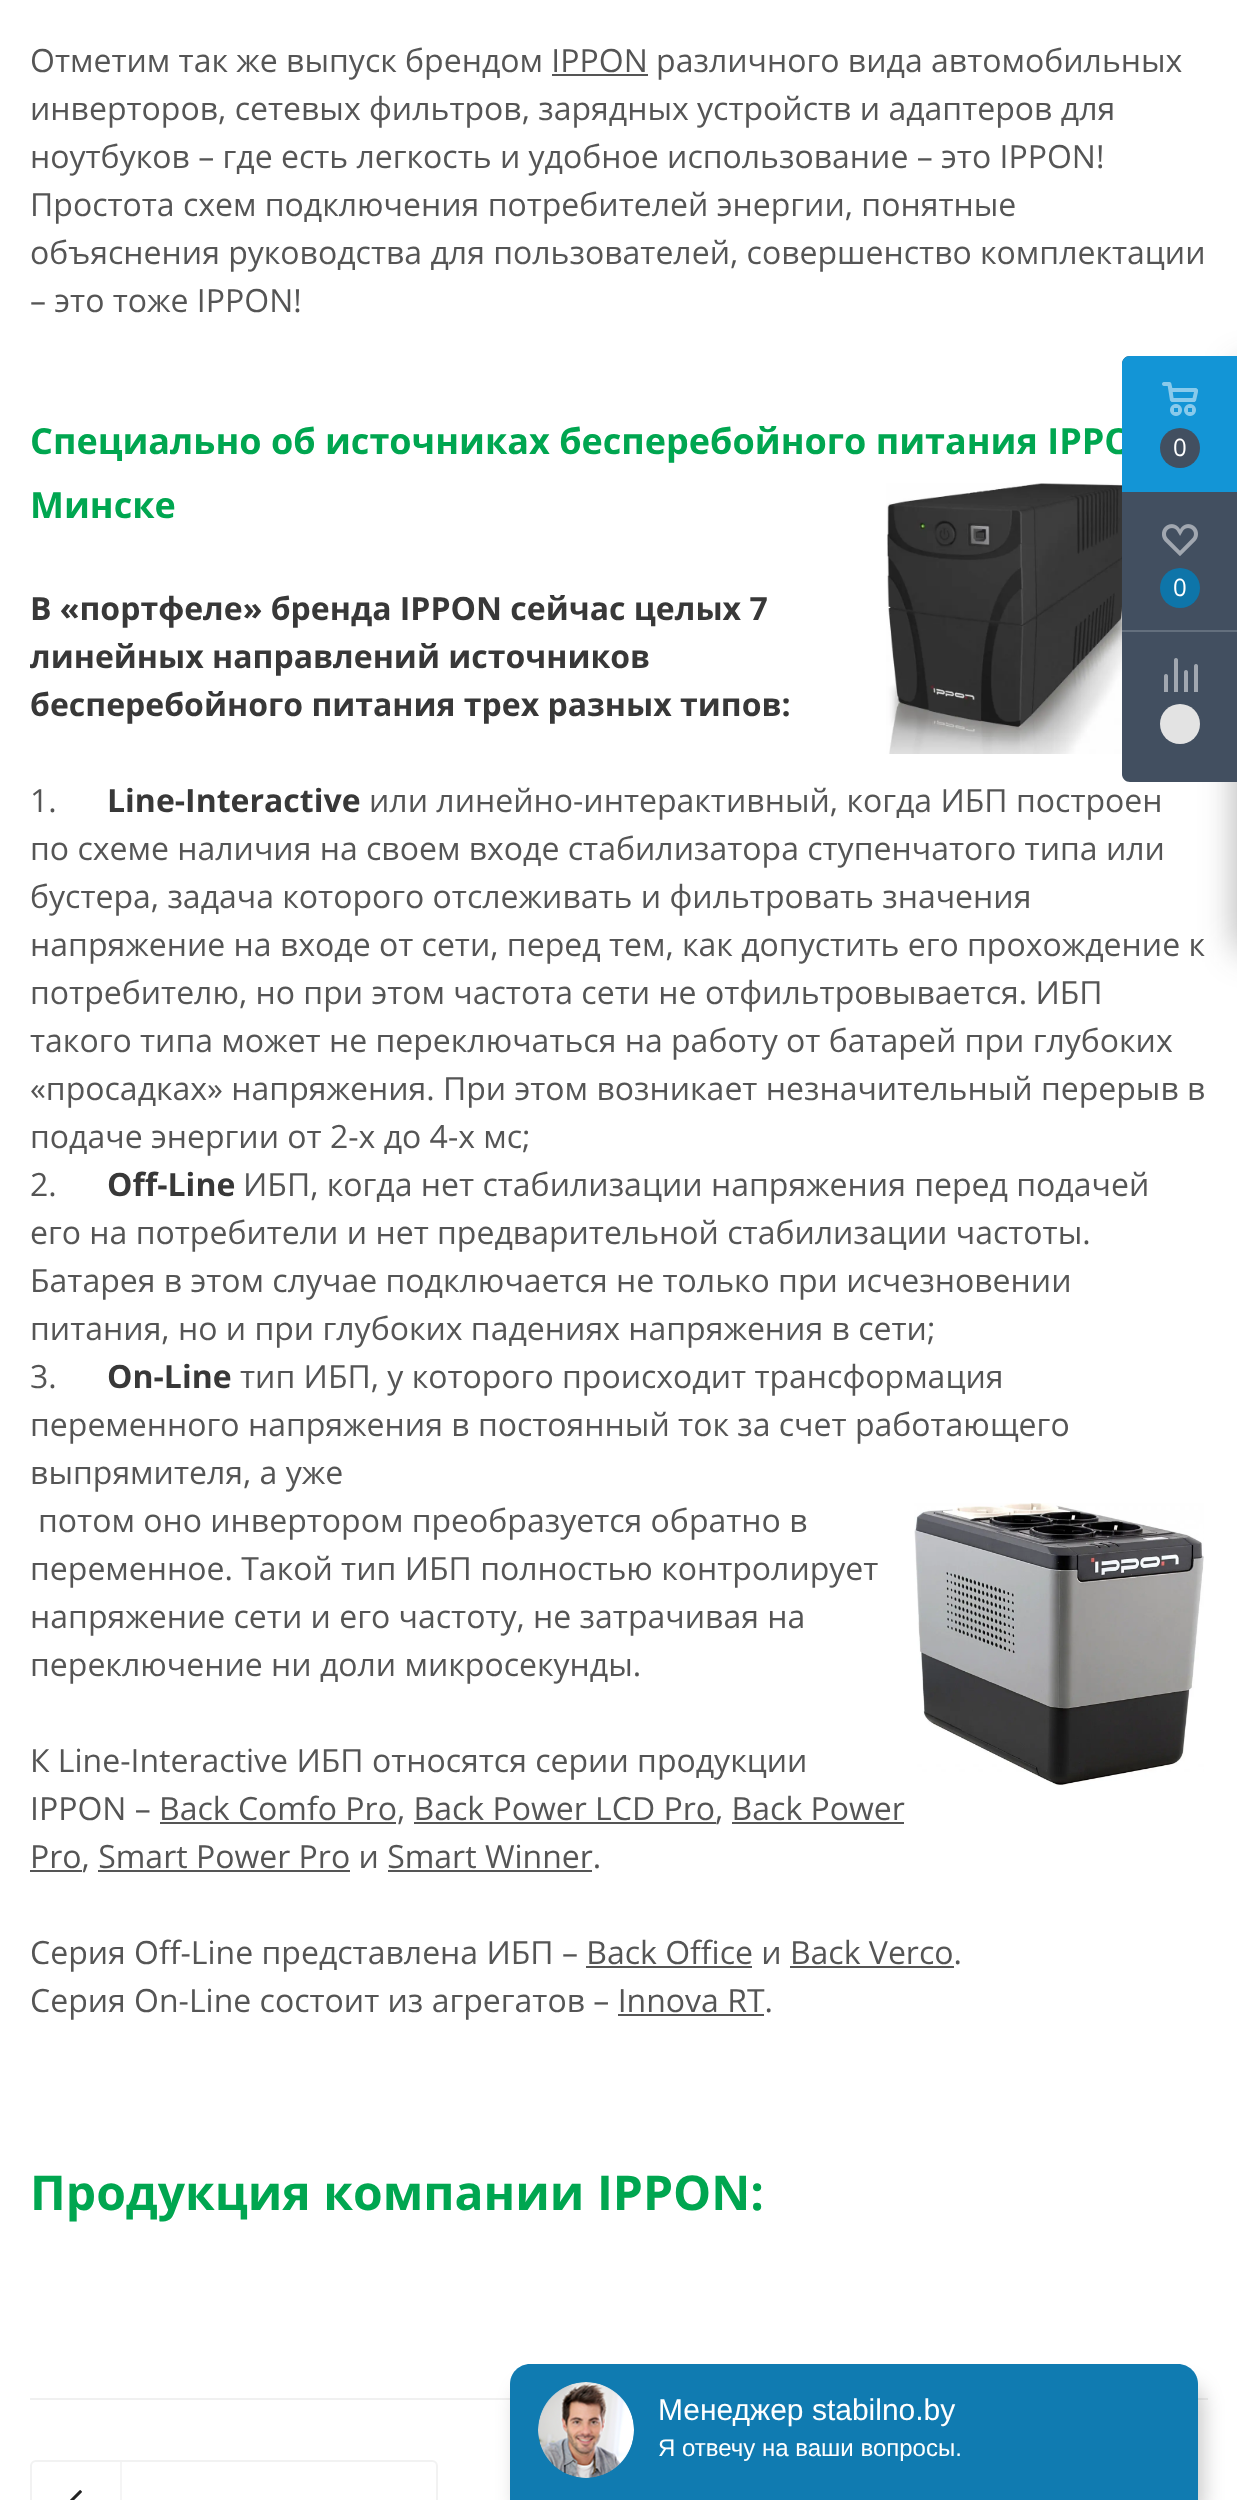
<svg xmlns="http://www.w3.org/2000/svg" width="1237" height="2500">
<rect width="100%" height="100%" fill="#fff"/>
<text x="30" y="72" style="font-family:Open Sans;font-size:32px;fill:#555">Отметим так же выпуск брендом IPPON различного вида автомобильных</text>
<rect x="552" y="74" width="96" height="2" fill="#555"/>
<text x="30" y="120" style="font-family:Open Sans;font-size:32px;fill:#555">инверторов, сетевых фильтров, зарядных устройств и адаптеров для</text>
<text x="30" y="168" style="font-family:Open Sans;font-size:32px;fill:#555">ноутбуков – где есть легкость и удобное использование – это IPPON!</text>
<text x="30" y="216" style="font-family:Open Sans;font-size:32px;fill:#555">Простота схем подключения потребителей энергии, понятные</text>
<text x="30" y="264" style="font-family:Open Sans;font-size:32px;fill:#555">объяснения руководства для пользователей, совершенство комплектации</text>
<text x="30" y="312" style="font-family:Open Sans;font-size:32px;fill:#555">– это тоже IPPON!</text>
<text x="30" y="454" style="font-family:Open Sans;font-size:36px;font-weight:bold;fill:#00a650">Специально об источниках бесперебойного питания IPPO</text>
<text x="30" y="518" style="font-family:Open Sans;font-size:36px;font-weight:bold;fill:#00a650">Минске</text>
<image x="886" y="483" width="236" height="271" href="media/1.png"/>
<text x="30" y="620" style="font-family:Open Sans;font-size:32px;font-weight:bold;fill:#383838">В «портфеле» бренда IPPON сейчас целых 7</text>
<text x="30" y="668" style="font-family:Open Sans;font-size:32px;font-weight:bold;fill:#383838">линейных направлений источников</text>
<text x="30" y="716" style="font-family:Open Sans;font-size:32px;font-weight:bold;fill:#383838">бесперебойного питания трех разных типов:</text>
<text x="30" y="812" style="font-family:Open Sans;font-size:32px;fill:#555">1.</text>
<text x="107" y="812" style="font-family:Open Sans;font-size:32px;font-weight:bold;fill:#383838">Line-Interactive</text>
<text x="369" y="812" style="font-family:Open Sans;font-size:32px;fill:#555">или линейно-интерактивный, когда ИБП построен</text>
<text x="30" y="860" style="font-family:Open Sans;font-size:32px;fill:#555">по схеме наличия на своем входе стабилизатора ступенчатого типа или</text>
<text x="30" y="908" style="font-family:Open Sans;font-size:32px;fill:#555">бустера, задача которого отслеживать и фильтровать значения</text>
<text x="30" y="956" style="font-family:Open Sans;font-size:32px;fill:#555">напряжение на входе от сети, перед тем, как допустить его прохождение к</text>
<text x="30" y="1004" style="font-family:Open Sans;font-size:32px;fill:#555">потребителю, но при этом частота сети не отфильтровывается. ИБП</text>
<text x="30" y="1052" style="font-family:Open Sans;font-size:32px;fill:#555">такого типа может не переключаться на работу от батарей при глубоких</text>
<text x="30" y="1100" style="font-family:Open Sans;font-size:32px;fill:#555">«просадках» напряжения. При этом возникает незначительный перерыв в</text>
<text x="30" y="1148" style="font-family:Open Sans;font-size:32px;fill:#555">подаче энергии от 2-х до 4-х мс;</text>
<text x="30" y="1196" style="font-family:Open Sans;font-size:32px;fill:#555">2.</text>
<text x="107" y="1196" style="font-family:Open Sans;font-size:32px;font-weight:bold;fill:#383838">Off-Line</text>
<text x="243" y="1196" style="font-family:Open Sans;font-size:32px;fill:#555">ИБП, когда нет стабилизации напряжения перед подачей</text>
<text x="30" y="1244" style="font-family:Open Sans;font-size:32px;fill:#555">его на потребители и нет предварительной стабилизации частоты.</text>
<text x="30" y="1292" style="font-family:Open Sans;font-size:32px;fill:#555">Батарея в этом случае подключается не только при исчезновении</text>
<text x="30" y="1340" style="font-family:Open Sans;font-size:32px;fill:#555">питания, но и при глубоких падениях напряжения в сети;</text>
<text x="30" y="1388" style="font-family:Open Sans;font-size:32px;fill:#555">3.</text>
<text x="107" y="1388" style="font-family:Open Sans;font-size:32px;font-weight:bold;fill:#383838">On-Line</text>
<text x="240" y="1388" style="font-family:Open Sans;font-size:32px;fill:#555">тип ИБП, у которого происходит трансформация</text>
<text x="30" y="1436" style="font-family:Open Sans;font-size:32px;fill:#555">переменного напряжения в постоянный ток за счет работающего</text>
<text x="30" y="1484" style="font-family:Open Sans;font-size:32px;fill:#555">выпрямителя, а уже</text>
<text x="38" y="1532" style="font-family:Open Sans;font-size:32px;fill:#555">потом оно инвертором преобразуется обратно в</text>
<text x="30" y="1580" style="font-family:Open Sans;font-size:32px;fill:#555">переменное. Такой тип ИБП полностью контролирует</text>
<text x="30" y="1628" style="font-family:Open Sans;font-size:32px;fill:#555">напряжение сети и его частоту, не затрачивая на</text>
<text x="30" y="1676" style="font-family:Open Sans;font-size:32px;fill:#555">переключение ни доли микросекунды.</text>
<image x="914" y="1503" width="290" height="283" href="media/2.png"/>
<text x="30" y="1772" style="font-family:Open Sans;font-size:32px;fill:#555">К Line-Interactive ИБП относятся серии продукции</text>
<text x="30" y="1820" style="font-family:Open Sans;font-size:32px;fill:#555">IPPON – Back Comfo Pro, Back Power LCD Pro, Back Power</text>
<rect x="160" y="1822" width="236" height="2" fill="#555"/>
<rect x="414" y="1822" width="302" height="2" fill="#555"/>
<rect x="732" y="1822" width="172" height="2" fill="#555"/>
<rect x="30" y="1870" width="52" height="2" fill="#555"/>
<text x="30" y="1868" style="font-family:Open Sans;font-size:32px;fill:#555">Pro, Smart Power Pro и Smart Winner.</text>
<rect x="98" y="1870" width="252" height="2" fill="#555"/>
<rect x="388" y="1870" width="204" height="2" fill="#555"/>
<text x="30" y="1964" style="font-family:Open Sans;font-size:32px;fill:#555">Серия Off-Line представлена ИБП – Back Office и Back Verco.</text>
<rect x="586" y="1966" width="166" height="2" fill="#555"/>
<rect x="790" y="1966" width="164" height="2" fill="#555"/>
<text x="30" y="2012" style="font-family:Open Sans;font-size:32px;fill:#555">Серия On-Line состоит из агрегатов – Innova RT.</text>
<rect x="618" y="2014" width="146" height="2" fill="#555"/>
<text x="30" y="2210" style="font-family:Open Sans;font-size:48px;font-weight:bold;fill:#00a650">Продукция компании IPPON:</text>
<rect x="30" y="2398" width="1178" height="2" fill="#f0f0f0"/>
<rect x="31" y="2461" width="406" height="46" rx="5" fill="none" stroke="#f2f2f2" stroke-width="2"/>
<image x="70" y="2490" width="12" height="10" href="media/3.png"/>
<rect x="120" y="2462" width="2" height="38" fill="#f5f5f5"/>
<rect x="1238" y="368" width="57" height="582" rx="4" fill="#2c2c2c66" filter="blur(18px)"/>
<path d="M1130 356h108v426h-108c-4.5 0-8-3.5-8-8v-410c0-4.5 3.5-8 8-8z" fill="#424f60"/>
<path d="M1130 356h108v136h-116v-128c0-4.5 3.5-8 8-8z" fill="#1395d6"/>
<image x="1162" y="382" width="36" height="34" href="media/4.png"/>
<circle cx="1180" cy="448" r="20" fill="#424f60"/>
<text x="1173" y="456" style="font-family:Open Sans;font-size:24px;fill:#fff">0</text>
<image x="1162" y="524" width="36" height="32" href="media/5.png"/>
<circle cx="1180" cy="588" r="20" fill="#0e75a9"/>
<text x="1173" y="596" style="font-family:Open Sans;font-size:24px;fill:#fff">0</text>
<rect x="1122" y="630" width="115" height="2" fill="#636f7d"/>
<image x="1164" y="658" width="34" height="34" href="media/6.png"/>
<circle cx="1180" cy="724" r="20" fill="#e3e3e3"/>
<rect x="516" y="2384" width="688" height="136" rx="20" fill="#00000033" filter="blur(10px)"/>
<path d="M530 2364h648c11 0 20 9 20 20v116h-688v-116c0-11 9-20 20-20z" fill="#107bb1"/>
<image x="538" y="2382" width="96" height="96" href="media/7.png"/>
<text x="658" y="2420" style="font-family:Liberation Sans;font-size:30px;fill:#fff">Менеджер stabilno.by</text>
<text x="658" y="2456" style="font-family:Liberation Sans;font-size:24px;fill:#fff">Я отвечу на ваши вопросы.</text>
</svg>
